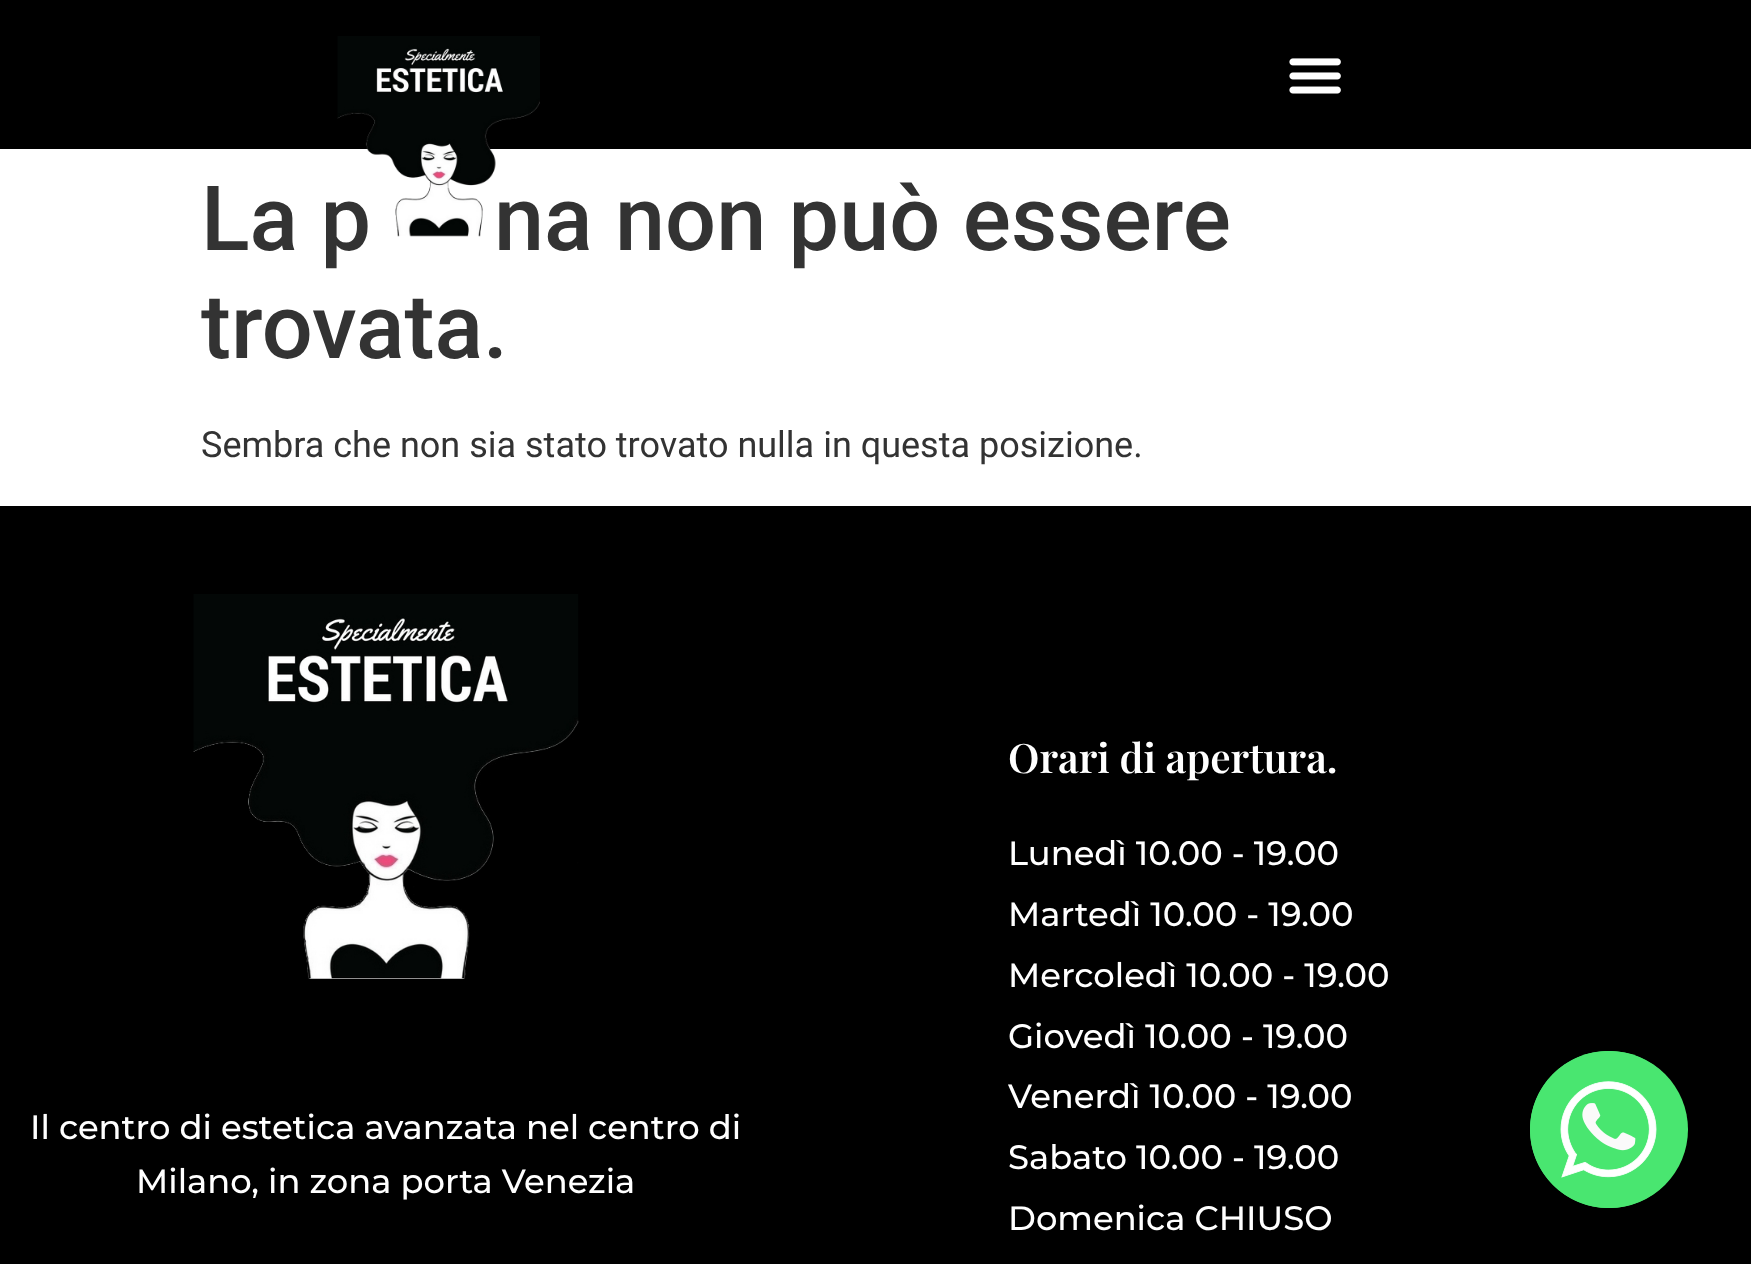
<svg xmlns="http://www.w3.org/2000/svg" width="1751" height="1264">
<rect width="100%" height="100%" fill="#fff"/>
<rect width="1751" height="149" fill="#000"/>
<text x="201" y="250" style="font-family:Roboto;font-size:90px;font-weight:500;fill:#333">La p</text>
<text x="494" y="250" style="font-family:Roboto;font-size:90px;font-weight:500;fill:#333">na non può essere</text>
<image x="337" y="36" width="203" height="201" href="media/1.png"/>
<image x="1289" y="58" width="52" height="36" href="media/2.png"/>
<text x="201" y="358" style="font-family:Roboto;font-size:90px;font-weight:500;fill:#333">trovata.</text>
<text x="201" y="457" style="font-family:Roboto;font-size:36px;fill:#333">Sembra che non sia stato trovato nulla in questa posizione.</text>
<rect y="506" width="1751" height="758" fill="#000"/>
<image x="193" y="594" width="386" height="385" href="media/3.png"/>
<text x="30" y="1139" style="font-family:Montserrat;font-size:33.75px;font-weight:500;fill:#fff">Il centro di estetica avanzata nel centro di</text>
<text x="136" y="1193" style="font-family:Montserrat;font-size:33.75px;font-weight:500;fill:#fff">Milano, in zona porta Venezia</text>
<text x="1008" y="773" style="font-family:Playfair Display;font-size:40.5px;font-weight:600;fill:#fff">Orari di apertura.</text>
<text x="1008" y="865" style="font-family:Montserrat;font-size:33.75px;font-weight:500;fill:#fff">Lunedì 10.00 - 19.00</text>
<text x="1008" y="926" style="font-family:Montserrat;font-size:33.75px;font-weight:500;fill:#fff">Martedì 10.00 - 19.00</text>
<text x="1008" y="987" style="font-family:Montserrat;font-size:33.75px;font-weight:500;fill:#fff">Mercoledì 10.00 - 19.00</text>
<text x="1008" y="1048" style="font-family:Montserrat;font-size:33.75px;font-weight:500;fill:#fff">Giovedì 10.00 - 19.00</text>
<text x="1008" y="1108" style="font-family:Montserrat;font-size:33.75px;font-weight:500;fill:#fff">Venerdì 10.00 - 19.00</text>
<text x="1008" y="1169" style="font-family:Montserrat;font-size:33.75px;font-weight:500;fill:#fff">Sabato 10.00 - 19.00</text>
<text x="1008" y="1230" style="font-family:Montserrat;font-size:33.75px;font-weight:500;fill:#fff">Domenica CHIUSO</text>
<rect x="1530" y="1051" width="158" height="157" rx="78.5" fill="#49e670"/>
<image x="1530" y="1051" width="130" height="157" href="media/4.png"/>
</svg>
